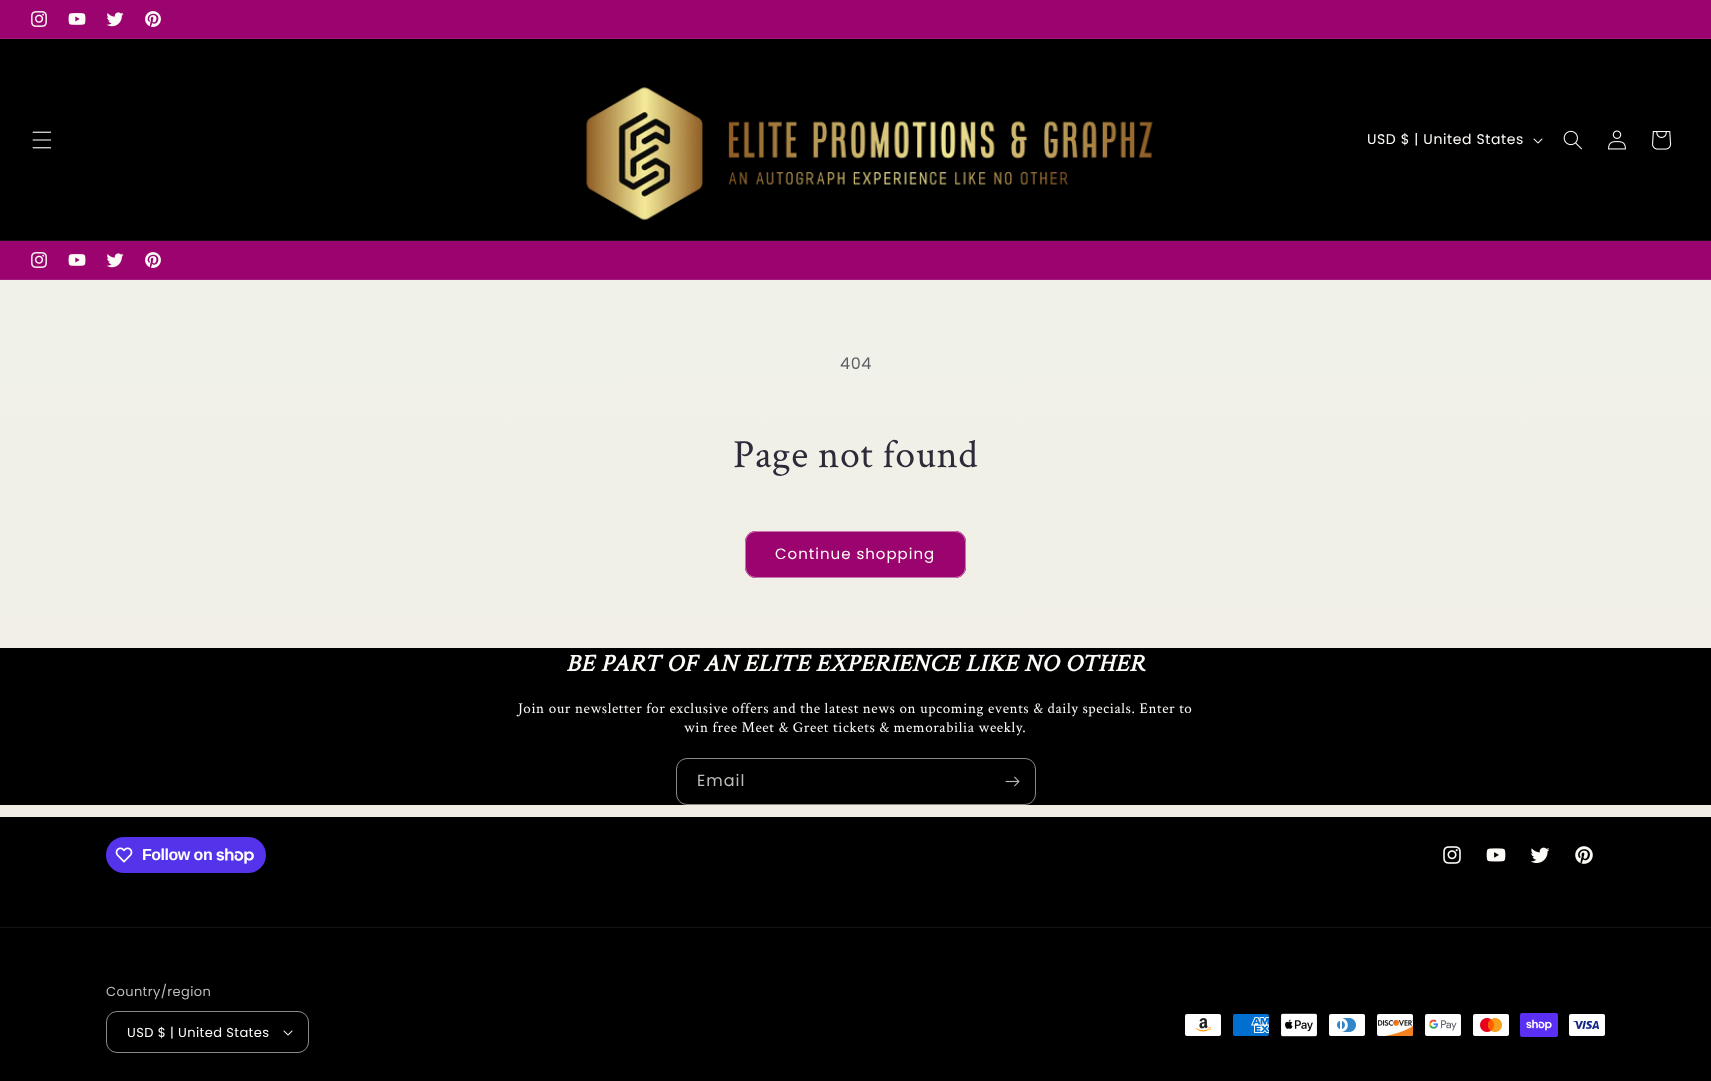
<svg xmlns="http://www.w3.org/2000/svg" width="1711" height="1081">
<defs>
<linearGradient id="g1" gradientUnits="userSpaceOnUse" x1="855" y1="0" x2="856" y2="1081"><stop offset="0" stop-color="#f0f4ec"/><stop offset="1" stop-color="#f1ebe2"/></linearGradient>
</defs>
<rect width="100%" height="100%" fill="#fff"/>
<rect y="280" width="1711" height="537" fill="url(#g1)"/>
<rect width="1711" height="38" fill="#9b046f"/>
<rect y="38" width="1711" height="1" fill="#a3187a"/>
<image x="31" y="11" width="16" height="16" href="media/1.png"/>
<image x="68" y="13" width="18" height="12" href="media/2.png"/>
<image x="106" y="12" width="18" height="15" href="media/3.png"/>
<image x="145" y="11" width="16" height="16" href="media/4.png"/>
<rect y="39" width="1711" height="201" fill="#000"/>
<rect y="240" width="1711" height="1" fill="#141414"/>
<image x="32" y="131" width="20" height="18" href="media/5.png"/>
<image x="586" y="87" width="567" height="133" href="media/6.png"/>
<text x="1367" y="144" style="font-family:Poppins;font-size:14px;letter-spacing:0.6px;fill:#fdfbf7">USD $ | United States</text>
<image x="1533" y="138" width="10" height="6" href="media/7.png"/>
<image x="1563" y="130" width="19" height="20" href="media/8.png"/>
<image x="1608" y="130" width="18" height="20" href="media/9.png"/>
<image x="1652" y="131" width="20" height="19" href="media/10.png"/>
<rect y="241" width="1711" height="38" fill="#9b046f"/>
<rect y="279" width="1711" height="1" fill="#a3187a"/>
<image x="31" y="252" width="16" height="16" href="media/1.png"/>
<image x="68" y="254" width="18" height="12" href="media/2.png"/>
<image x="106" y="253" width="18" height="15" href="media/3.png"/>
<image x="145" y="252" width="16" height="16" href="media/4.png"/>
<text x="840" y="369" style="font-family:Poppins;font-size:16px;letter-spacing:0.6px;fill:#5f5c65">404</text>
<text x="733" y="467" style="font-family:Crimson Text;font-size:40px;letter-spacing:0.6px;fill:#2e2a39">Page not found</text>
<rect x="745" y="531" width="221" height="47" rx="11" fill="#9b046f"/>
<rect x="745.5" y="531.5" width="220" height="46" rx="10.5" fill="none" stroke="#9b046f"/>
<rect x="745.5" y="531.5" width="220" height="46" rx="10.5" fill="none" stroke="#fdfbf773"/>
<text x="775" y="559" style="font-family:Poppins;font-size:15px;letter-spacing:1px;fill:#fdfbf7">Continue shopping</text>
<rect y="648" width="1711" height="157" fill="#000"/>
<text x="566" y="671" style="font-family:Crimson Text;font-size:24px;font-weight:bold;font-style:italic;letter-spacing:0.6px;fill:#fdfbf7">BE PART OF AN ELITE EXPERIENCE LIKE NO OTHER</text>
<text x="518" y="713" style="font-family:Crimson Text;font-size:15px;letter-spacing:0.6px;fill:#fdfbf7">Join our newsletter for exclusive offers and the latest news on upcoming events &amp; daily specials. Enter to</text>
<text x="684" y="732" style="font-family:Crimson Text;font-size:15px;letter-spacing:0.6px;fill:#fdfbf7">win free Meet &amp; Greet tickets &amp; memorabilia weekly.</text>
<rect x="676.5" y="758.5" width="359" height="46" rx="10.5" fill="none" stroke="#8b8a88"/>
<text x="697" y="786" style="font-family:Poppins;font-size:16px;letter-spacing:1px;fill:#bebcb9">Email</text>
<image x="1005" y="776" width="15" height="11" href="media/11.png"/>
<rect y="817" width="1711" height="264" fill="#000"/>
<rect x="106" y="837" width="160" height="36" rx="18" fill="#5433eb"/>
<image x="115" y="847" width="18" height="16" href="media/12.png"/>
<text x="142" y="860" style="font-family:Liberation Sans;font-size:16px;font-weight:bold;letter-spacing:-0.5px;fill:#fff">Follow on</text>
<image x="216" y="848" width="38" height="16" href="media/13.png"/>
<image x="1443" y="846" width="18" height="18" href="media/14.png"/>
<image x="1486" y="848" width="20" height="14" href="media/15.png"/>
<image x="1530" y="847" width="20" height="16" href="media/16.png"/>
<image x="1575" y="846" width="18" height="18" href="media/17.png"/>
<rect y="927" width="1711" height="1" fill="#141414"/>
<text x="106" y="996" style="font-family:Poppins;font-size:13px;letter-spacing:0.4px;fill:#bebcb9">Country/region</text>
<image x="283" y="1030" width="10" height="6" href="media/7.png"/>
<rect x="106.5" y="1011.5" width="202" height="41" rx="10.5" fill="none" stroke="#8b8a88"/>
<text x="127" y="1037" style="font-family:Poppins;font-size:13px;letter-spacing:0.4px;fill:#fdfbf7">USD $ | United States</text>
<image x="1185" y="1014" width="36" height="22" href="media/18.png"/>
<image x="1233" y="1014" width="36" height="22" href="media/19.png"/>
<image x="1281" y="1013" width="36" height="24" href="media/20.png"/>
<image x="1329" y="1014" width="36" height="22" href="media/21.png"/>
<image x="1377" y="1014" width="37" height="22" href="media/22.png"/>
<image x="1425" y="1014" width="36" height="22" href="media/23.png"/>
<image x="1473" y="1014" width="36" height="22" href="media/24.png"/>
<image x="1520" y="1013" width="38" height="24" href="media/25.png"/>
<image x="1569" y="1014" width="36" height="22" href="media/26.png"/>
</svg>
